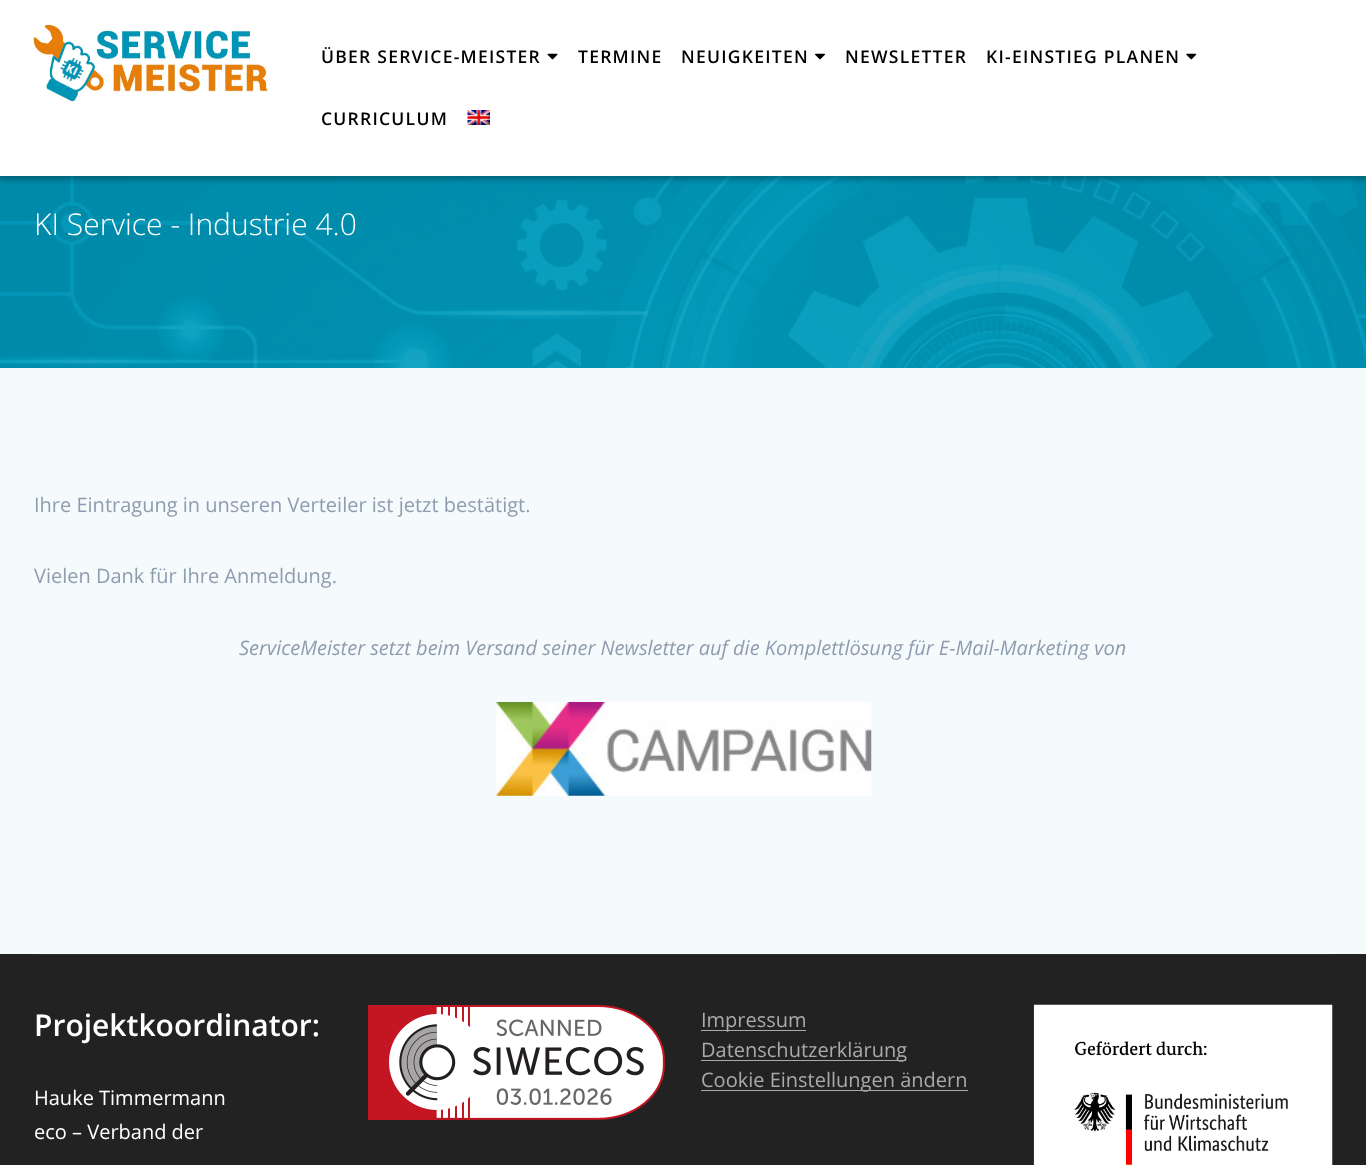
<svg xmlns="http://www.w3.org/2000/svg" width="1366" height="1165">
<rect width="100%" height="100%" fill="#fff"/>
<image x="0" y="176" width="1366" height="192" href="media/1.png"/>
<rect y="176" width="1366" height="192" fill="#0094b5d1"/>
<rect x="-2" y="-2" width="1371" height="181" fill="#00000054" filter="blur(3px)"/>
<rect width="1366" height="176" fill="#fff"/>
<image x="33" y="25" width="235" height="77" href="media/2.png"/>
<text x="321" y="63" style="font-family:Open Sans;font-size:17.5px;font-weight:600;letter-spacing:1.25px;fill:#000">ÜBER SERVICE-MEISTER</text>
<image x="547" y="53" width="11" height="7" href="media/3.png"/>
<text x="578" y="63" style="font-family:Open Sans;font-size:17.5px;font-weight:600;letter-spacing:1.25px;fill:#000">TERMINE</text>
<text x="681" y="63" style="font-family:Open Sans;font-size:17.5px;font-weight:600;letter-spacing:1.25px;fill:#000">NEUIGKEITEN</text>
<image x="815" y="53" width="10" height="7" href="media/4.png"/>
<text x="845" y="63" style="font-family:Open Sans;font-size:17.5px;font-weight:600;letter-spacing:1.25px;fill:#000">NEWSLETTER</text>
<text x="986" y="63" style="font-family:Open Sans;font-size:17.5px;font-weight:600;letter-spacing:1.25px;fill:#000">KI-EINSTIEG PLANEN</text>
<image x="1186" y="53" width="11" height="7" href="media/5.png"/>
<text x="321" y="125" style="font-family:Open Sans;font-size:17.5px;font-weight:600;letter-spacing:1.25px;fill:#000">CURRICULUM</text>
<image x="467" y="110" width="23" height="15" href="media/6.png"/>
<text x="34" y="235" style="font-family:Open Sans;font-size:30px;font-weight:300;fill:#fff">KI Service - Industrie 4.0</text>
<rect y="368" width="1366" height="586" fill="#f5fafd"/>
<text x="34" y="512" style="font-family:Open Sans;font-size:20px;fill:#8e9dae">Ihre Eintragung in unseren Verteiler ist jetzt bestätigt.</text>
<text x="34" y="583" style="font-family:Open Sans;font-size:20px;fill:#8e9dae">Vielen Dank für Ihre Anmeldung.</text>
<text x="239" y="655" style="font-family:Open Sans;font-size:20px;font-style:italic;fill:#8e9dae">ServiceMeister setzt beim Versand seiner Newsletter auf die Komplettlösung für E-Mail-Marketing von</text>
<image x="496" y="702" width="376" height="94" href="media/7.png"/>
<rect y="954" width="1366" height="211" fill="#222"/>
<rect x="34" y="954" width="1299" height="1" fill="#2b2b2b"/>
<text x="34" y="1036" style="font-family:Open Sans;font-size:30px;font-weight:600;fill:#fff">Projektkoordinator:</text>
<text x="34" y="1105" style="font-family:Open Sans;font-size:20px;fill:#fff">Hauke Timmermann</text>
<text x="34" y="1139" style="font-family:Open Sans;font-size:20px;fill:#fff">eco – Verband der</text>
<image x="368" y="1005" width="297" height="115" href="media/8.png"/>
<rect x="701" y="1030" width="105" height="1" fill="#aaa"/>
<text x="701" y="1027" style="font-family:Open Sans;font-size:20px;fill:#aaa">Impressum</text>
<rect x="701" y="1060" width="205" height="1" fill="#aaa"/>
<text x="701" y="1057" style="font-family:Open Sans;font-size:20px;fill:#aaa">Datenschutzerklärung</text>
<rect x="701" y="1090" width="267" height="1" fill="#aaa"/>
<text x="701" y="1087" style="font-family:Open Sans;font-size:20px;fill:#aaa">Cookie Einstellungen ändern</text>
<image x="1033" y="1004" width="300" height="161" href="media/9.png"/>
</svg>
